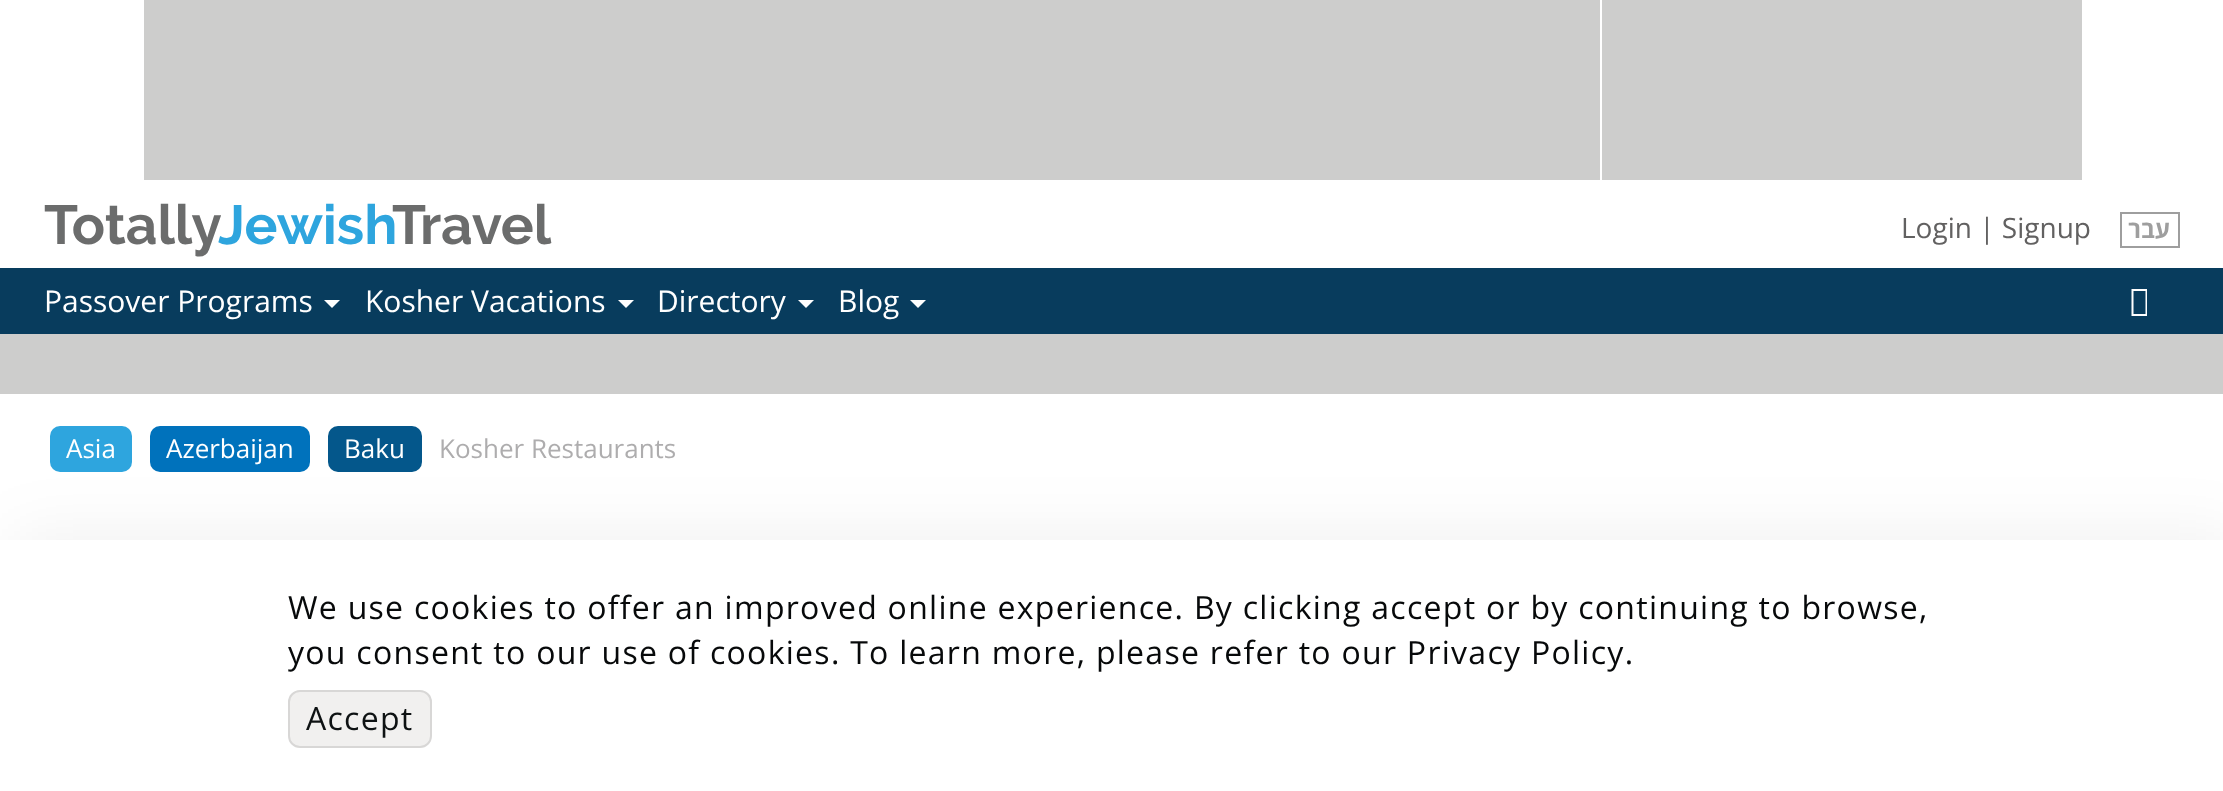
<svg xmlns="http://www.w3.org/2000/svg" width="2223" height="791">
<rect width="100%" height="100%" fill="#fff"/>
<rect x="144" width="1456" height="180" fill="#cdcdcc"/>
<rect x="1602" width="480" height="180" fill="#cdcdcc"/>
<text x="44" y="244" style="font-family:Raleway;font-size:55px;font-weight:bold;fill:#6b6c6c">Totally</text>
<text x="218" y="244" style="font-family:Raleway;font-size:55px;font-weight:bold;fill:#2ea5de">Jewish</text>
<text x="392" y="244" style="font-family:Raleway;font-size:55px;font-weight:bold;fill:#6b6c6c">Travel</text>
<text x="1901" y="238" style="font-family:Open Sans;font-size:28px;fill:#626161">Login | Signup</text>
<rect x="2121" y="213" width="58" height="34" fill="none" stroke="#9e9e9e" stroke-width="2"/>
<text x="2170" y="238" style="font-family:Open Sans;font-size:24px;font-weight:bold;direction:rtl;fill:#9e9e9e">עבר</text>
<rect y="268" width="2223" height="66" fill="#083c5d"/>
<text x="44" y="312" style="font-family:Open Sans;font-size:30px;fill:#fff">Passover Programs</text>
<path d="M324 300h16l-8 8z" fill="#fff"/>
<text x="365" y="312" style="font-family:Open Sans;font-size:30px;fill:#fff">Kosher Vacations</text>
<path d="M618 300h16l-8 8z" fill="#fff"/>
<text x="657" y="312" style="font-family:Open Sans;font-size:30px;fill:#fff">Directory</text>
<path d="M798 300h16l-8 8z" fill="#fff"/>
<text x="838" y="312" style="font-family:Open Sans;font-size:30px;fill:#fff">Blog</text>
<path d="M910 300h16l-8 8z" fill="#fff"/>
<path d="M2131.5 316v-27h15.5v27zm2-2h12v-23h-12z" fill="#fff"/>
<rect y="334" width="2223" height="60" fill="#cdcdcc"/>
<rect x="50" y="426" width="82" height="46" rx="10" fill="#2ea5de"/>
<text x="66" y="458" style="font-family:Open Sans;font-size:26px;fill:#fff">Asia</text>
<rect x="150" y="426" width="160" height="46" rx="10" fill="#0072bc"/>
<text x="166" y="458" style="font-family:Open Sans;font-size:26px;fill:#fff">Azerbaijan</text>
<rect x="328" y="426" width="94" height="46" rx="10" fill="#04578b"/>
<text x="344" y="458" style="font-family:Open Sans;font-size:26px;fill:#fff">Baku</text>
<text x="439" y="458" style="font-family:Open Sans;font-size:26px;fill:#aeadae">Kosher Restaurants</text>
<rect x="14" y="536" width="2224" height="252" fill="#0000000f" filter="blur(34px)"/>
<rect y="540" width="2223" height="251" fill="#fff"/>
<text x="288" y="619" style="font-family:Open Sans;font-size:32px;letter-spacing:1.28px;fill:#07090a">We use cookies to offer an improved online experience. By clicking accept or by continuing to browse,</text>
<text x="288" y="664" style="font-family:Open Sans;font-size:32px;letter-spacing:1.28px;fill:#07090a">you consent to our use of cookies. To learn more, please refer to our Privacy Policy.</text>
<rect x="288" y="690" width="144" height="58" rx="12" fill="#f1f0ef"/>
<rect x="289" y="691" width="142" height="56" rx="11" fill="none" stroke="#0000001a" stroke-width="2"/>
<text x="306" y="730" style="font-family:Open Sans;font-size:32px;letter-spacing:1.28px;fill:#0e1213">Accept</text>
</svg>
